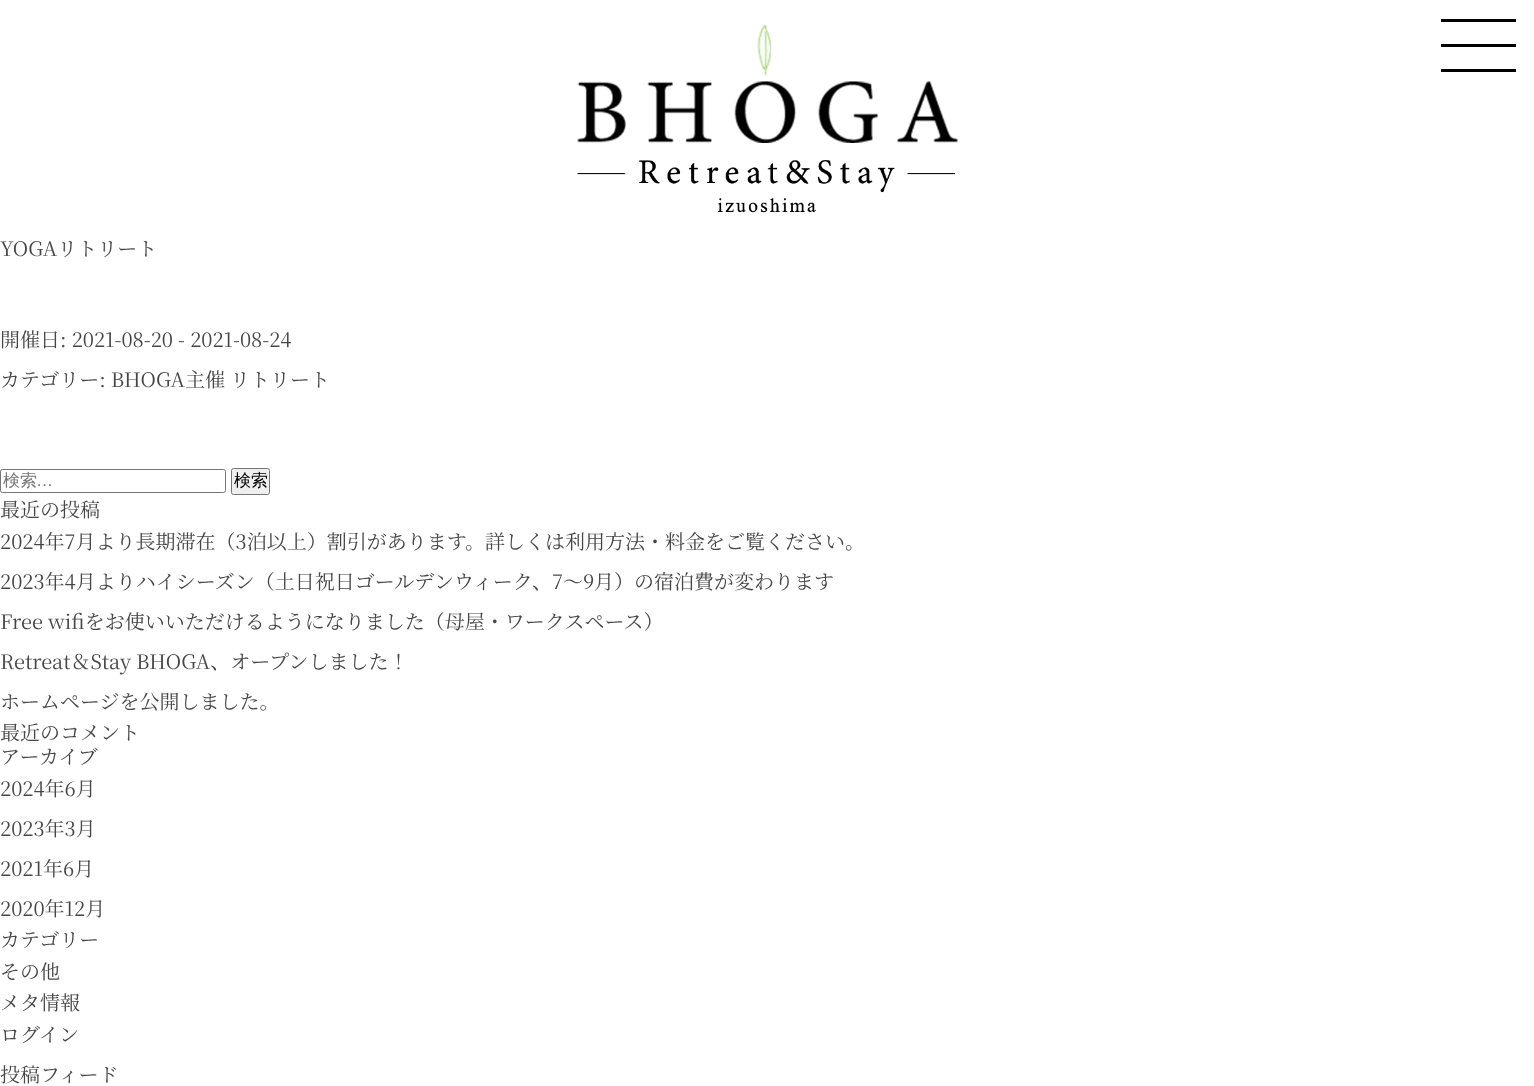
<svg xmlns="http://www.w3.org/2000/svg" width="1534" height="1086">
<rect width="100%" height="100%" fill="#fff"/>
<image x="577" y="25" width="381" height="188" href="media/1.png"/>
<rect x="1441" y="44" width="75" height="3" fill="#000"/>
<rect x="1441" y="19" width="75" height="3" fill="#000"/>
<rect x="1441" y="69" width="75" height="3" fill="#000"/>
<text x="0" y="256" style="font-family:Noto Serif JP;font-size:20px;fill:#464646">YOGAリトリート</text>
<text x="0" y="347" style="font-family:Noto Serif JP;font-size:20px;fill:#464646">開催日: 2021-08-20 - 2021-08-24</text>
<text x="0" y="387" style="font-family:Noto Serif JP;font-size:20px;fill:#464646">カテゴリー: BHOGA主催 リトリート</text>
<rect x="0.5" y="469.5" width="225" height="23" rx="2" fill="none" stroke="#767676"/>
<text x="3" y="486" style="font-family:WenQuanYi Zen Hei;font-size:17px;font-weight:500;fill:#757575">検索</text>
<text x="36" y="486" style="font-family:Liberation Sans;font-size:17px;fill:#757575">…</text>
<rect x="231.5" y="468.5" width="38" height="26" rx="2" fill="#efefef" stroke="#767676"/>
<text x="234" y="486" style="font-family:WenQuanYi Zen Hei;font-size:17px;font-weight:500;fill:#000">検索</text>
<text x="0" y="517" style="font-family:Noto Serif JP;font-size:20px;fill:#464646">最近の投稿</text>
<text x="0" y="549" style="font-family:Noto Serif JP;font-size:20px;fill:#464646">2024年7月より長期滞在（3泊以上）割引があります。詳しくは利用方法・料金をご覧ください。</text>
<text x="0" y="589" style="font-family:Noto Serif JP;font-size:20px;fill:#464646">2023年4月よりハイシーズン（土日祝日ゴールデンウィーク、7〜9月）の宿泊費が変わります</text>
<text x="0" y="629" style="font-family:Noto Serif JP;font-size:20px;fill:#464646">Free wifiをお使いいただけるようになりました（母屋・ワークスペース）</text>
<text x="0" y="669" style="font-family:Noto Serif JP;font-size:20px;fill:#464646">Retreat＆Stay BHOGA、オープンしました！</text>
<text x="0" y="709" style="font-family:Noto Serif JP;font-size:20px;fill:#464646">ホームページを公開しました。</text>
<text x="0" y="740" style="font-family:Noto Serif JP;font-size:20px;fill:#464646">最近のコメント</text>
<text x="0" y="764" style="font-family:Noto Serif JP;font-size:20px;fill:#464646">アーカイブ</text>
<text x="0" y="796" style="font-family:Noto Serif JP;font-size:20px;fill:#464646">2024年6月</text>
<text x="0" y="836" style="font-family:Noto Serif JP;font-size:20px;fill:#464646">2023年3月</text>
<text x="0" y="876" style="font-family:Noto Serif JP;font-size:20px;fill:#464646">2021年6月</text>
<text x="0" y="916" style="font-family:Noto Serif JP;font-size:20px;fill:#464646">2020年12月</text>
<text x="0" y="947" style="font-family:Noto Serif JP;font-size:20px;fill:#464646">カテゴリー</text>
<text x="0" y="979" style="font-family:Noto Serif JP;font-size:20px;fill:#464646">その他</text>
<text x="0" y="1010" style="font-family:Noto Serif JP;font-size:20px;fill:#464646">メタ情報</text>
<text x="0" y="1042" style="font-family:Noto Serif JP;font-size:20px;fill:#464646">ログイン</text>
<text x="0" y="1082" style="font-family:Noto Serif JP;font-size:20px;fill:#464646">投稿フィード</text>
</svg>
